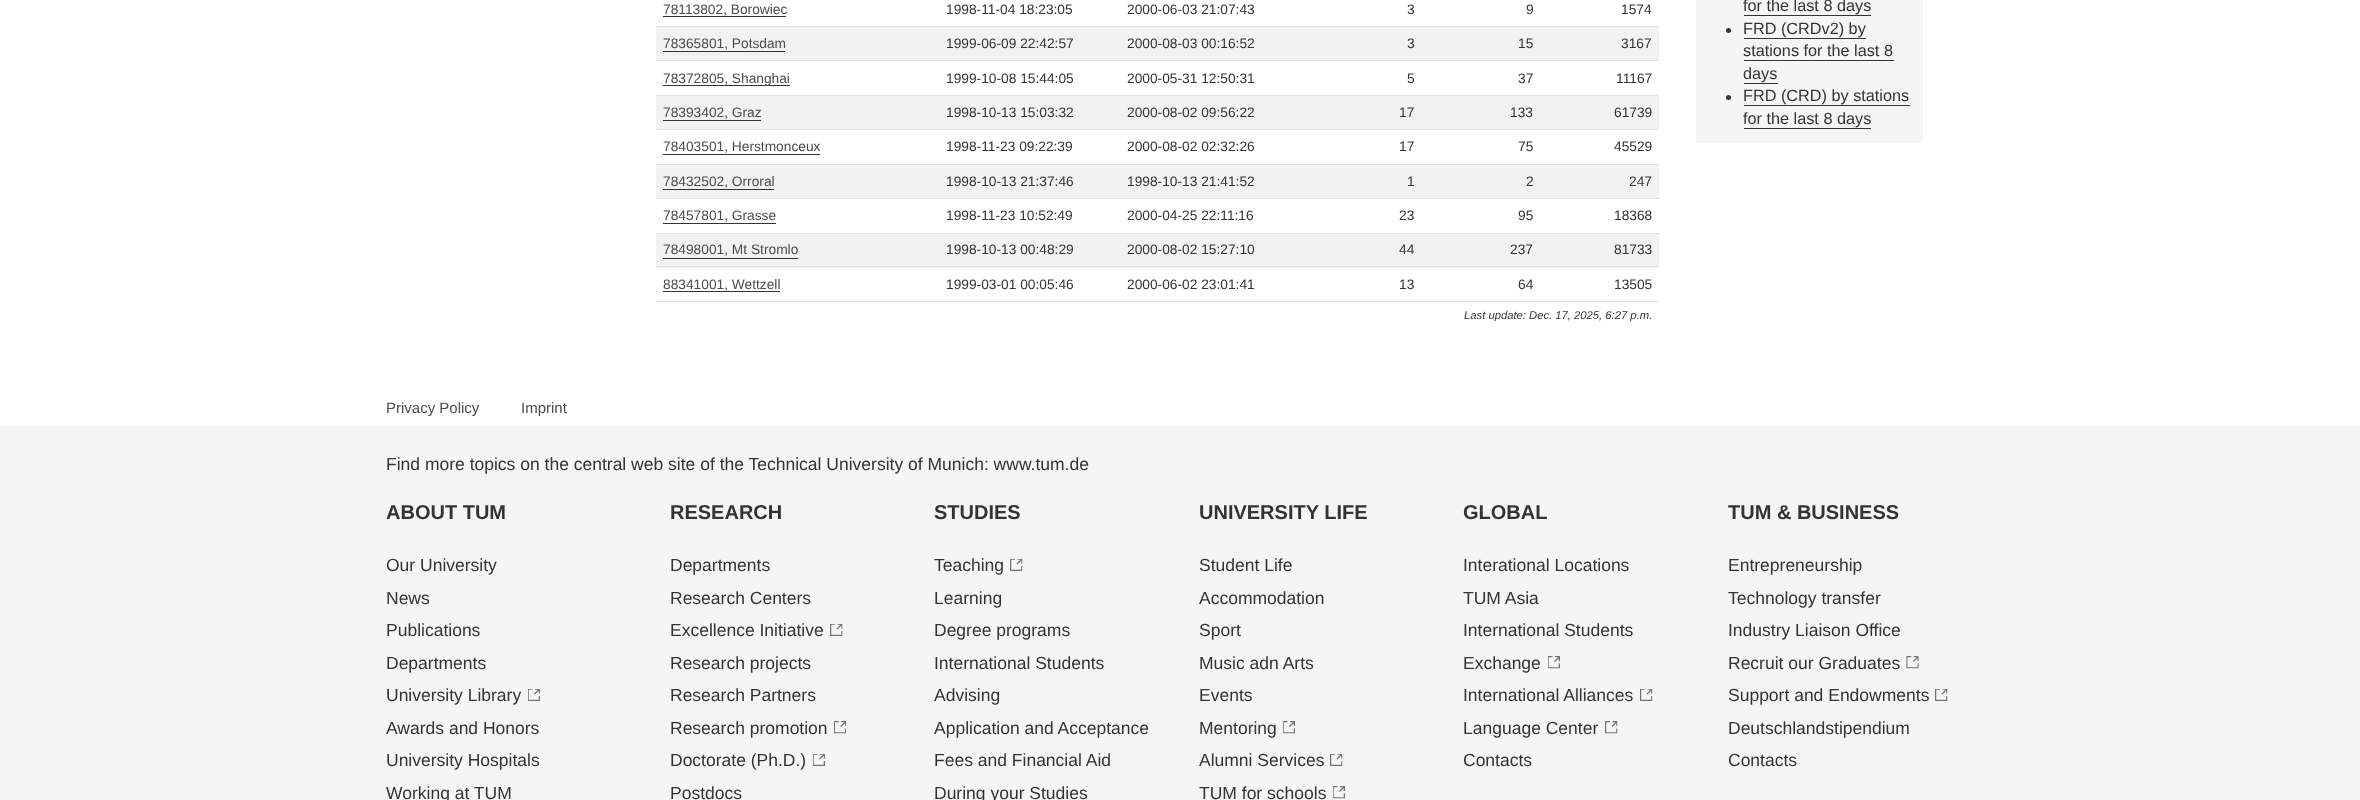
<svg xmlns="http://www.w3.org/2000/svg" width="2360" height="800">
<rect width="100%" height="100%" fill="#fff"/>
<text x="663" y="14" style="font-family:Liberation Sans;font-size:13.75px;fill:#4c4c4c">78113802, Borowiec</text>
<rect x="663" y="16" width="123" height="1" fill="#333"/>
<text x="946" y="14" style="font-family:Liberation Sans;font-size:13.75px;fill:#333">1998-11-04 18:23:05</text>
<text x="1127" y="14" style="font-family:Liberation Sans;font-size:13.75px;fill:#333">2000-06-03 21:07:43</text>
<text x="1407" y="14" style="font-family:Liberation Sans;font-size:13.75px;fill:#333">3</text>
<text x="1526" y="14" style="font-family:Liberation Sans;font-size:13.75px;fill:#333">9</text>
<text x="1621" y="14" style="font-family:Liberation Sans;font-size:13.75px;fill:#333">1574</text>
<rect x="656" y="27" width="1003" height="33" fill="#f2f2f2"/>
<text x="663" y="48" style="font-family:Liberation Sans;font-size:13.75px;fill:#4c4c4c">78365801, Potsdam</text>
<rect x="663" y="51" width="122" height="1" fill="#333"/>
<text x="946" y="48" style="font-family:Liberation Sans;font-size:13.75px;fill:#333">1999-06-09 22:42:57</text>
<text x="1127" y="48" style="font-family:Liberation Sans;font-size:13.75px;fill:#333">2000-08-03 00:16:52</text>
<text x="1407" y="48" style="font-family:Liberation Sans;font-size:13.75px;fill:#333">3</text>
<text x="1518" y="48" style="font-family:Liberation Sans;font-size:13.75px;fill:#333">15</text>
<rect x="656" y="26" width="1003" height="1" fill="#dee2e6"/>
<text x="1621" y="48" style="font-family:Liberation Sans;font-size:13.75px;fill:#333">3167</text>
<rect x="663" y="85" width="127" height="1" fill="#333"/>
<text x="663" y="83" style="font-family:Liberation Sans;font-size:13.75px;fill:#4c4c4c">78372805, Shanghai</text>
<text x="946" y="83" style="font-family:Liberation Sans;font-size:13.75px;fill:#333">1999-10-08 15:44:05</text>
<text x="1127" y="83" style="font-family:Liberation Sans;font-size:13.75px;fill:#333">2000-05-31 12:50:31</text>
<text x="1407" y="83" style="font-family:Liberation Sans;font-size:13.75px;fill:#333">5</text>
<text x="1518" y="83" style="font-family:Liberation Sans;font-size:13.75px;fill:#333">37</text>
<rect x="656" y="60" width="1003" height="1" fill="#dee2e6"/>
<text x="1616" y="83" style="font-family:Liberation Sans;font-size:13.75px;fill:#333">11167</text>
<rect x="656" y="96" width="1003" height="33" fill="#f2f2f2"/>
<text x="663" y="117" style="font-family:Liberation Sans;font-size:13.75px;fill:#4c4c4c">78393402, Graz</text>
<rect x="663" y="120" width="98" height="1" fill="#333"/>
<text x="946" y="117" style="font-family:Liberation Sans;font-size:13.75px;fill:#333">1998-10-13 15:03:32</text>
<text x="1127" y="117" style="font-family:Liberation Sans;font-size:13.75px;fill:#333">2000-08-02 09:56:22</text>
<text x="1399" y="117" style="font-family:Liberation Sans;font-size:13.75px;fill:#333">17</text>
<text x="1510" y="117" style="font-family:Liberation Sans;font-size:13.75px;fill:#333">133</text>
<rect x="656" y="95" width="1003" height="1" fill="#dee2e6"/>
<text x="1614" y="117" style="font-family:Liberation Sans;font-size:13.75px;fill:#333">61739</text>
<text x="663" y="151" style="font-family:Liberation Sans;font-size:13.75px;fill:#4c4c4c">78403501, Herstmonceux</text>
<rect x="663" y="154" width="157" height="1" fill="#333"/>
<text x="946" y="151" style="font-family:Liberation Sans;font-size:13.75px;fill:#333">1998-11-23 09:22:39</text>
<text x="1127" y="151" style="font-family:Liberation Sans;font-size:13.75px;fill:#333">2000-08-02 02:32:26</text>
<text x="1399" y="151" style="font-family:Liberation Sans;font-size:13.75px;fill:#333">17</text>
<text x="1518" y="151" style="font-family:Liberation Sans;font-size:13.75px;fill:#333">75</text>
<rect x="656" y="129" width="1003" height="1" fill="#dee2e6"/>
<text x="1614" y="151" style="font-family:Liberation Sans;font-size:13.75px;fill:#333">45529</text>
<rect x="656" y="165" width="1003" height="33" fill="#f2f2f2"/>
<text x="663" y="186" style="font-family:Liberation Sans;font-size:13.75px;fill:#4c4c4c">78432502, Orroral</text>
<rect x="663" y="189" width="111" height="1" fill="#333"/>
<text x="946" y="186" style="font-family:Liberation Sans;font-size:13.75px;fill:#333">1998-10-13 21:37:46</text>
<text x="1127" y="186" style="font-family:Liberation Sans;font-size:13.75px;fill:#333">1998-10-13 21:41:52</text>
<text x="1407" y="186" style="font-family:Liberation Sans;font-size:13.75px;fill:#333">1</text>
<text x="1526" y="186" style="font-family:Liberation Sans;font-size:13.75px;fill:#333">2</text>
<rect x="656" y="164" width="1003" height="1" fill="#dee2e6"/>
<text x="1629" y="186" style="font-family:Liberation Sans;font-size:13.75px;fill:#333">247</text>
<text x="663" y="220" style="font-family:Liberation Sans;font-size:13.75px;fill:#4c4c4c">78457801, Grasse</text>
<rect x="663" y="223" width="113" height="1" fill="#333"/>
<text x="946" y="220" style="font-family:Liberation Sans;font-size:13.75px;fill:#333">1998-11-23 10:52:49</text>
<text x="1127" y="220" style="font-family:Liberation Sans;font-size:13.75px;fill:#333">2000-04-25 22:11:16</text>
<text x="1399" y="220" style="font-family:Liberation Sans;font-size:13.75px;fill:#333">23</text>
<text x="1518" y="220" style="font-family:Liberation Sans;font-size:13.75px;fill:#333">95</text>
<rect x="656" y="198" width="1003" height="1" fill="#dee2e6"/>
<text x="1614" y="220" style="font-family:Liberation Sans;font-size:13.75px;fill:#333">18368</text>
<rect x="656" y="234" width="1003" height="34" fill="#f2f2f2"/>
<text x="663" y="254" style="font-family:Liberation Sans;font-size:13.75px;fill:#4c4c4c">78498001, Mt Stromlo</text>
<rect x="663" y="258" width="135" height="1" fill="#333"/>
<text x="946" y="254" style="font-family:Liberation Sans;font-size:13.75px;fill:#333">1998-10-13 00:48:29</text>
<text x="1127" y="254" style="font-family:Liberation Sans;font-size:13.75px;fill:#333">2000-08-02 15:27:10</text>
<text x="1399" y="254" style="font-family:Liberation Sans;font-size:13.75px;fill:#333">44</text>
<text x="1510" y="254" style="font-family:Liberation Sans;font-size:13.75px;fill:#333">237</text>
<rect x="656" y="233" width="1003" height="1" fill="#dee2e6"/>
<text x="1614" y="254" style="font-family:Liberation Sans;font-size:13.75px;fill:#333">81733</text>
<text x="663" y="289" style="font-family:Liberation Sans;font-size:13.75px;fill:#4c4c4c">88341001, Wettzell</text>
<rect x="663" y="291" width="117" height="1" fill="#333"/>
<text x="946" y="289" style="font-family:Liberation Sans;font-size:13.75px;fill:#333">1999-03-01 00:05:46</text>
<text x="1127" y="289" style="font-family:Liberation Sans;font-size:13.75px;fill:#333">2000-06-02 23:01:41</text>
<text x="1399" y="289" style="font-family:Liberation Sans;font-size:13.75px;fill:#333">13</text>
<text x="1518" y="289" style="font-family:Liberation Sans;font-size:13.75px;fill:#333">64</text>
<rect x="656" y="266" width="1003" height="1" fill="#dee2e6"/>
<text x="1614" y="289" style="font-family:Liberation Sans;font-size:13.75px;fill:#333">13505</text>
<rect x="656" y="301" width="1003" height="1" fill="#dee2e6"/>
<text x="1464" y="319" style="font-family:Liberation Sans;font-size:11.25px;font-style:italic;fill:#333">Last update: Dec. 17, 2025, 6:27 p.m.</text>
<rect x="1696" width="227" height="143" fill="#f5f5f5"/>
<text x="1743" y="11" style="font-family:Liberation Sans;font-size:16.25px;fill:#333">for the last 8 days</text>
<rect x="1744" y="15" width="127" height="1" fill="#333"/>
<circle cx="1728.5" cy="30.5" r="2.5" fill="#333"/>
<text x="1743" y="34" style="font-family:Liberation Sans;font-size:16.25px;fill:#333">FRD (CRDv2) by</text>
<rect x="1744" y="38" width="122" height="1" fill="#333"/>
<text x="1743" y="56" style="font-family:Liberation Sans;font-size:16.25px;fill:#333">stations for the last 8</text>
<rect x="1744" y="60" width="150" height="1" fill="#333"/>
<text x="1743" y="79" style="font-family:Liberation Sans;font-size:16.25px;fill:#333">days</text>
<rect x="1744" y="83" width="34" height="1" fill="#333"/>
<circle cx="1728.5" cy="97.5" r="2.5" fill="#333"/>
<text x="1743" y="101" style="font-family:Liberation Sans;font-size:16.25px;fill:#333">FRD (CRD) by stations</text>
<rect x="1744" y="105" width="166" height="1" fill="#333"/>
<text x="1743" y="124" style="font-family:Liberation Sans;font-size:16.25px;fill:#333">for the last 8 days</text>
<rect x="1744" y="128" width="127" height="1" fill="#333"/>
<text x="386" y="413" style="font-family:Liberation Sans;font-size:15px;fill:#4c4c4c">Privacy Policy</text>
<text x="521" y="413" style="font-family:Liberation Sans;font-size:15px;fill:#4c4c4c">Imprint</text>
<rect y="426" width="2360" height="374" fill="#f5f5f5"/>
<text x="386" y="470" style="font-family:Liberation Sans;font-size:17.5px;fill:#333">Find more topics on the central web site of the Technical University of Munich: www.tum.de</text>
<text x="386" y="519" style="font-family:Liberation Sans;font-size:20px;font-weight:bold;fill:#333">ABOUT TUM</text>
<text x="386" y="571" style="font-family:Liberation Sans;font-size:17.5px;fill:#333">Our University</text>
<text x="386" y="604" style="font-family:Liberation Sans;font-size:17.5px;fill:#333">News</text>
<text x="386" y="636" style="font-family:Liberation Sans;font-size:17.5px;fill:#333">Publications</text>
<text x="386" y="669" style="font-family:Liberation Sans;font-size:17.5px;fill:#333">Departments</text>
<text x="386" y="701" style="font-family:Liberation Sans;font-size:17.5px;fill:#333">University Library</text>
<image x="528" y="689" width="12" height="12" href="media/1.png"/>
<text x="386" y="734" style="font-family:Liberation Sans;font-size:17.5px;fill:#333">Awards and Honors</text>
<text x="386" y="766" style="font-family:Liberation Sans;font-size:17.5px;fill:#333">University Hospitals</text>
<text x="386" y="799" style="font-family:Liberation Sans;font-size:17.5px;fill:#333">Working at TUM</text>
<text x="670" y="519" style="font-family:Liberation Sans;font-size:20px;font-weight:bold;fill:#333">RESEARCH</text>
<text x="670" y="571" style="font-family:Liberation Sans;font-size:17.5px;fill:#333">Departments</text>
<text x="670" y="604" style="font-family:Liberation Sans;font-size:17.5px;fill:#333">Research Centers</text>
<text x="670" y="636" style="font-family:Liberation Sans;font-size:17.5px;fill:#333">Excellence Initiative</text>
<image x="830" y="624" width="13" height="12" href="media/2.png"/>
<text x="670" y="669" style="font-family:Liberation Sans;font-size:17.5px;fill:#333">Research projects</text>
<text x="670" y="701" style="font-family:Liberation Sans;font-size:17.5px;fill:#333">Research Partners</text>
<text x="670" y="734" style="font-family:Liberation Sans;font-size:17.5px;fill:#333">Research promotion</text>
<image x="834" y="721" width="12" height="13" href="media/3.png"/>
<text x="670" y="766" style="font-family:Liberation Sans;font-size:17.5px;fill:#333">Doctorate (Ph.D.)</text>
<image x="813" y="754" width="12" height="12" href="media/1.png"/>
<text x="670" y="799" style="font-family:Liberation Sans;font-size:17.5px;fill:#333">Postdocs</text>
<text x="934" y="519" style="font-family:Liberation Sans;font-size:20px;font-weight:bold;fill:#333">STUDIES</text>
<text x="934" y="571" style="font-family:Liberation Sans;font-size:17.5px;fill:#333">Teaching</text>
<image x="1010" y="559" width="13" height="12" href="media/4.png"/>
<text x="934" y="604" style="font-family:Liberation Sans;font-size:17.5px;fill:#333">Learning</text>
<text x="934" y="636" style="font-family:Liberation Sans;font-size:17.5px;fill:#333">Degree programs</text>
<text x="934" y="669" style="font-family:Liberation Sans;font-size:17.5px;fill:#333">International Students</text>
<text x="934" y="701" style="font-family:Liberation Sans;font-size:17.5px;fill:#333">Advising</text>
<text x="934" y="734" style="font-family:Liberation Sans;font-size:17.5px;fill:#333">Application and Acceptance</text>
<text x="934" y="766" style="font-family:Liberation Sans;font-size:17.5px;fill:#333">Fees and Financial Aid</text>
<text x="934" y="799" style="font-family:Liberation Sans;font-size:17.5px;fill:#333">During your Studies</text>
<text x="1199" y="519" style="font-family:Liberation Sans;font-size:20px;font-weight:bold;fill:#333">UNIVERSITY LIFE</text>
<text x="1199" y="571" style="font-family:Liberation Sans;font-size:17.5px;fill:#333">Student Life</text>
<text x="1199" y="604" style="font-family:Liberation Sans;font-size:17.5px;fill:#333">Accommodation</text>
<text x="1199" y="636" style="font-family:Liberation Sans;font-size:17.5px;fill:#333">Sport</text>
<text x="1199" y="669" style="font-family:Liberation Sans;font-size:17.5px;fill:#333">Music adn Arts</text>
<text x="1199" y="701" style="font-family:Liberation Sans;font-size:17.5px;fill:#333">Events</text>
<text x="1199" y="734" style="font-family:Liberation Sans;font-size:17.5px;fill:#333">Mentoring</text>
<image x="1283" y="721" width="12" height="13" href="media/5.png"/>
<text x="1199" y="766" style="font-family:Liberation Sans;font-size:17.5px;fill:#333">Alumni Services</text>
<image x="1330" y="754" width="13" height="12" href="media/2.png"/>
<text x="1199" y="799" style="font-family:Liberation Sans;font-size:17.5px;fill:#333">TUM for schools</text>
<image x="1333" y="786" width="12" height="13" href="media/5.png"/>
<text x="1463" y="519" style="font-family:Liberation Sans;font-size:20px;font-weight:bold;fill:#333">GLOBAL</text>
<text x="1463" y="571" style="font-family:Liberation Sans;font-size:17.5px;fill:#333">Interational Locations</text>
<text x="1463" y="604" style="font-family:Liberation Sans;font-size:17.5px;fill:#333">TUM Asia</text>
<text x="1463" y="636" style="font-family:Liberation Sans;font-size:17.5px;fill:#333">International Students</text>
<text x="1463" y="669" style="font-family:Liberation Sans;font-size:17.5px;fill:#333">Exchange</text>
<image x="1548" y="656" width="12" height="13" href="media/6.png"/>
<text x="1463" y="701" style="font-family:Liberation Sans;font-size:17.5px;fill:#333">International Alliances</text>
<image x="1640" y="689" width="13" height="12" href="media/2.png"/>
<text x="1463" y="734" style="font-family:Liberation Sans;font-size:17.5px;fill:#333">Language Center</text>
<image x="1605" y="721" width="13" height="13" href="media/7.png"/>
<text x="1463" y="766" style="font-family:Liberation Sans;font-size:17.5px;fill:#333">Contacts</text>
<text x="1728" y="519" style="font-family:Liberation Sans;font-size:20px;font-weight:bold;fill:#333">TUM &amp; BUSINESS</text>
<text x="1728" y="571" style="font-family:Liberation Sans;font-size:17.5px;fill:#333">Entrepreneurship</text>
<text x="1728" y="604" style="font-family:Liberation Sans;font-size:17.5px;fill:#333">Technology transfer</text>
<text x="1728" y="636" style="font-family:Liberation Sans;font-size:17.5px;fill:#333">Industry Liaison Office</text>
<text x="1728" y="669" style="font-family:Liberation Sans;font-size:17.5px;fill:#333">Recruit our Graduates</text>
<image x="1906" y="656" width="13" height="13" href="media/8.png"/>
<text x="1728" y="701" style="font-family:Liberation Sans;font-size:17.5px;fill:#333">Support and Endowments</text>
<image x="1935" y="689" width="13" height="12" href="media/2.png"/>
<text x="1728" y="734" style="font-family:Liberation Sans;font-size:17.5px;fill:#333">Deutschlandstipendium</text>
<text x="1728" y="766" style="font-family:Liberation Sans;font-size:17.5px;fill:#333">Contacts</text>
</svg>
